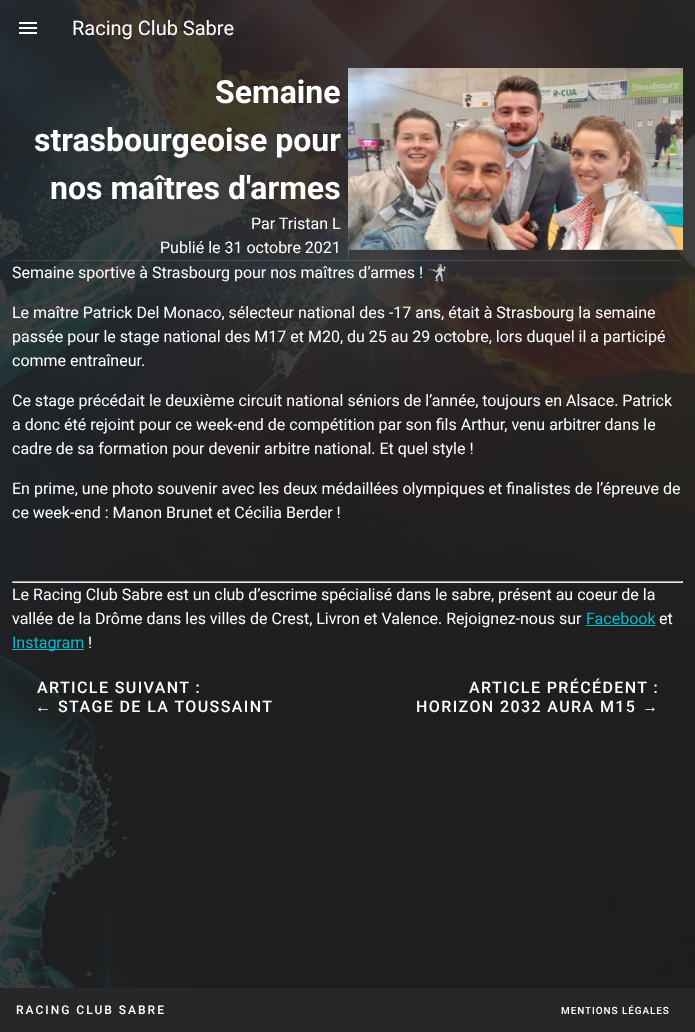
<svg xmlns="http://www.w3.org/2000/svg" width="695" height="1032">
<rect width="100%" height="100%" fill="#fff"/>
<image x="0" y="0" width="695" height="988" href="media/1.png"/>
<rect width="695" height="56" fill="#212121de"/>
<image x="19" y="22" width="18" height="12" href="media/2.png"/>
<text x="72" y="35" style="font-family:Roboto;font-size:20px;fill:#fff">Racing Club Sabre</text>
<text x="215" y="103" style="font-family:Roboto;font-size:32px;font-weight:bold;fill:#fff">Semaine</text>
<text x="34" y="151" style="font-family:Roboto;font-size:32px;font-weight:bold;fill:#fff">strasbourgeoise pour</text>
<text x="50" y="199" style="font-family:Roboto;font-size:32px;font-weight:bold;fill:#fff">nos maîtres d'armes</text>
<text x="251" y="229" style="font-family:Roboto;font-size:16px;fill:#fff">Par Tristan L</text>
<text x="160" y="253" style="font-family:Roboto;font-size:16px;fill:#fff">Publié le 31 octobre 2021</text>
<rect x="348" y="249" width="1" height="11" fill="#ffffff1f"/>
<image x="348" y="68" width="335" height="182" href="media/3.png"/>
<rect x="12" y="260" width="671" height="1" fill="#ffffff1f"/>
<text x="12" y="278" style="font-family:Roboto;font-size:16px;fill:#fff">Semaine sportive à Strasbourg pour nos maîtres d’armes !</text>
<text x="427" y="278" style="font-family:Noto Color Emoji;font-size:16px;fill:#fff">🤺</text>
<text x="12" y="318" style="font-family:Roboto;font-size:16px;fill:#fff">Le maître Patrick Del Monaco, sélecteur national des -17 ans, était à Strasbourg la semaine</text>
<text x="12" y="342" style="font-family:Roboto;font-size:16px;fill:#fff">passée pour le stage national des M17 et M20, du 25 au 29 octobre, lors duquel il a participé</text>
<text x="12" y="366" style="font-family:Roboto;font-size:16px;fill:#fff">comme entraîneur.</text>
<text x="12" y="406" style="font-family:Roboto;font-size:16px;fill:#fff">Ce stage précédait le deuxième circuit national séniors de l’année, toujours en Alsace. Patrick</text>
<text x="12" y="430" style="font-family:Roboto;font-size:16px;fill:#fff">a donc été rejoint pour ce week-end de compétition par son fils Arthur, venu arbitrer dans le</text>
<text x="12" y="454" style="font-family:Roboto;font-size:16px;fill:#fff">cadre de sa formation pour devenir arbitre national. Et quel style !</text>
<text x="12" y="494" style="font-family:Roboto;font-size:16px;fill:#fff">En prime, une photo souvenir avec les deux médaillées olympiques et finalistes de l’épreuve de</text>
<text x="12" y="518" style="font-family:Roboto;font-size:16px;fill:#fff">ce week-end : Manon Brunet et Cécilia Berder !</text>
<rect x="12" y="581" width="671" height="1" fill="#9f9f9f"/>
<rect x="682" y="581" width="1" height="2" fill="#eee"/>
<rect x="12" y="582" width="671" height="1" fill="#eee"/>
<rect x="12" y="581" width="1" height="2" fill="#9f9f9f"/>
<text x="12" y="600" style="font-family:Roboto;font-size:16px;fill:#fff">Le Racing Club Sabre est un club d’escrime spécialisé dans le sabre, présent au coeur de la</text>
<text x="12" y="624" style="font-family:Roboto;font-size:16px;fill:#fff">vallée de la Drôme dans les villes de Crest, Livron et Valence. Rejoignez-nous sur</text>
<text x="586" y="624" style="font-family:Roboto;font-size:16px;fill:#00bcd4">Facebook</text>
<rect x="586" y="625" width="69" height="1" fill="#00bcd4"/>
<text x="659" y="624" style="font-family:Roboto;font-size:16px;fill:#fff">et</text>
<rect x="12" y="649" width="72" height="1" fill="#00bcd4"/>
<text x="12" y="648" style="font-family:Roboto;font-size:16px;fill:#00bcd4">Instagram</text>
<text x="88" y="648" style="font-family:Roboto;font-size:16px;fill:#fff">!</text>
<text x="37" y="693" style="font-family:Roboto;font-size:16px;font-weight:500;letter-spacing:1.4px;fill:#fff">ARTICLE SUIVANT :</text>
<text x="35" y="712" style="font-family:Liberation Sans;font-size:16px;letter-spacing:1.4px;fill:#fff">←</text>
<text x="58" y="712" style="font-family:Roboto;font-size:16px;font-weight:500;letter-spacing:1.4px;fill:#fff">STAGE DE LA TOUSSAINT</text>
<text x="469" y="693" style="font-family:Roboto;font-size:16px;font-weight:500;letter-spacing:1.4px;fill:#fff">ARTICLE PRÉCÉDENT :</text>
<text x="416" y="712" style="font-family:Roboto;font-size:16px;font-weight:500;letter-spacing:1.4px;fill:#fff">HORIZON 2032 AURA M15</text>
<text x="642" y="712" style="font-family:Liberation Sans;font-size:16px;letter-spacing:1.4px;fill:#fff">→</text>
<rect y="988" width="695" height="44" fill="#272727"/>
<text x="16" y="1014" style="font-family:Roboto;font-size:12px;font-weight:500;letter-spacing:2px;fill:#fff">RACING CLUB SABRE</text>
<text x="561" y="1014" style="font-family:Roboto;font-size:10px;font-weight:500;letter-spacing:0.9px;fill:#fff">MENTIONS LÉGALES</text>
</svg>
